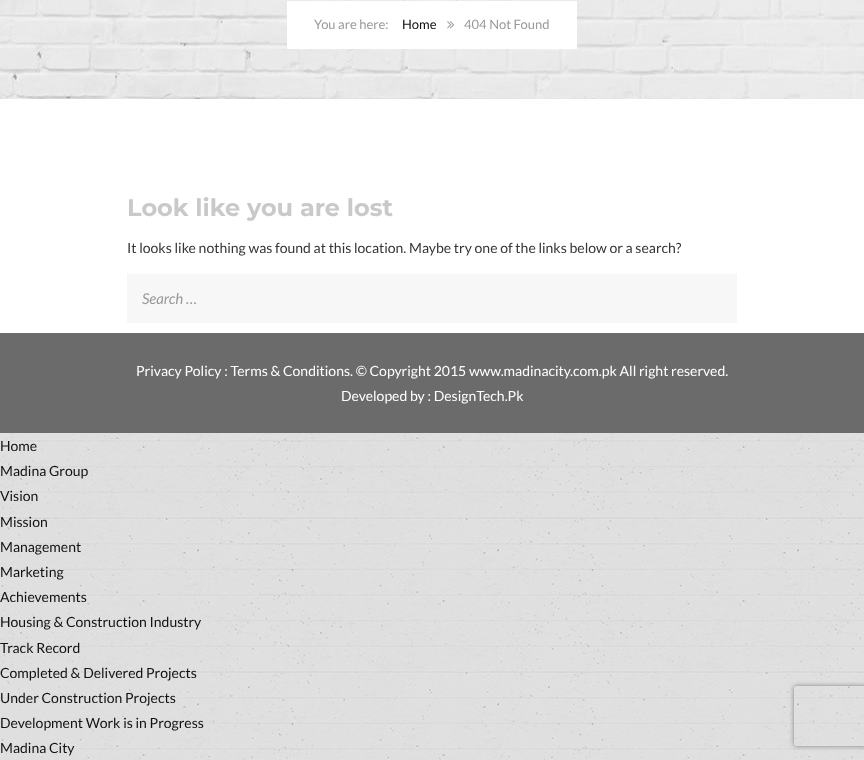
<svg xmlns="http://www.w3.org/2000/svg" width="864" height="760">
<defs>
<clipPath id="clip1"><path d="M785 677h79v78h-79zm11 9h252c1 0 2 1 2 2v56c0 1-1 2-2 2h-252c-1 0-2-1-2-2v-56c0-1 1-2 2-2z" clip-rule="evenodd"/></clipPath>
</defs>
<rect width="100%" height="100%" fill="#fff"/>
<image x="0" y="433" width="864" height="327" href="media/1.png"/>
<image x="0" y="0" width="864" height="99" href="media/2.png"/>
<rect x="287" y="1" width="290" height="48" fill="#fff"/>
<text x="314" y="29" style="font-family:Lato;font-size:13px;fill:#999">You are here:</text>
<text x="402" y="29" style="font-family:Lato;font-size:13px;fill:#111">Home</text>
<image x="447" y="21" width="7" height="8" href="media/3.png"/>
<text x="464" y="29" style="font-family:Lato;font-size:13px;fill:#999">404 Not Found</text>
<text x="127" y="216" style="font-family:Montserrat;font-size:24px;font-weight:bold;fill:#c9c9c9">Look like you are lost</text>
<text x="127" y="253" style="font-family:Lato;font-size:14px;fill:#353535">It looks like nothing was found at this location. Maybe try one of the links below or a search?</text>
<rect x="127" y="274" width="610" height="49" fill="#f7f7f7"/>
<text x="142" y="304" style="font-family:Lato;font-size:15px;font-style:italic;fill:#999">Search …</text>
<rect y="333" width="864" height="100" fill="#6b6b6b"/>
<text x="136" y="376" style="font-family:Lato;font-size:14px;fill:#fff">Privacy Policy : Terms &amp; Conditions. © Copyright 2015 www.madinacity.com.pk All right reserved.</text>
<text x="341" y="401" style="font-family:Lato;font-size:14px;fill:#fff">Developed by : DesignTech.Pk</text>
<text x="0" y="451" style="font-family:Lato;font-size:14px;fill:#111">Home</text>
<text x="0" y="476" style="font-family:Lato;font-size:14px;fill:#111">Madina Group</text>
<text x="0" y="501" style="font-family:Lato;font-size:14px;fill:#111">Vision</text>
<text x="0" y="527" style="font-family:Lato;font-size:14px;fill:#111">Mission</text>
<text x="0" y="552" style="font-family:Lato;font-size:14px;fill:#111">Management</text>
<text x="0" y="577" style="font-family:Lato;font-size:14px;fill:#111">Marketing</text>
<text x="0" y="602" style="font-family:Lato;font-size:14px;fill:#111">Achievements</text>
<text x="0" y="627" style="font-family:Lato;font-size:14px;fill:#111">Housing &amp; Construction Industry</text>
<text x="0" y="653" style="font-family:Lato;font-size:14px;fill:#111">Track Record</text>
<text x="0" y="678" style="font-family:Lato;font-size:14px;fill:#111">Completed &amp; Delivered Projects</text>
<text x="0" y="703" style="font-family:Lato;font-size:14px;fill:#111">Under Construction Projects</text>
<text x="0" y="728" style="font-family:Lato;font-size:14px;fill:#111">Development Work is in Progress</text>
<text x="0" y="753" style="font-family:Lato;font-size:14px;fill:#111">Madina City</text>
<g clip-path="url(#clip1)">
<rect x="794" y="686" width="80" height="60" rx="2" fill="#808080" filter="blur(2.5px)"/>
</g>
</svg>
